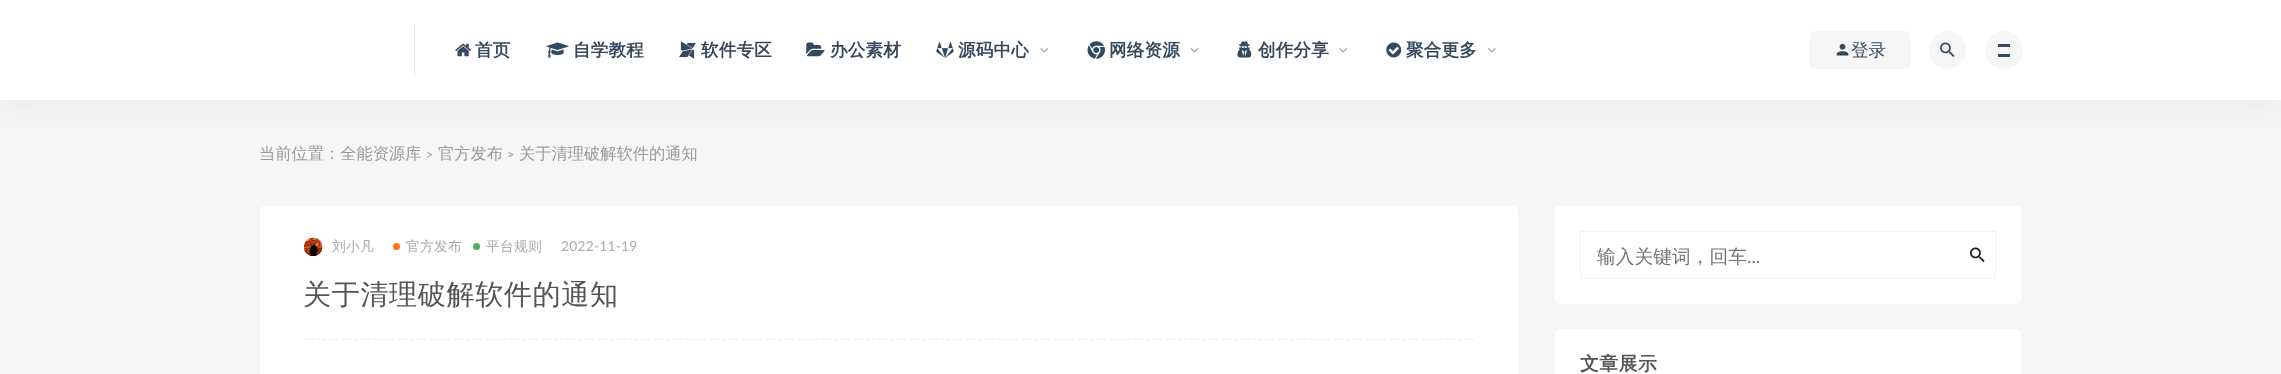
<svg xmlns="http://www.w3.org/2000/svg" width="2281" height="374">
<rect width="100%" height="100%" fill="#f6f6f6"/>
<rect width="2281" height="100" fill="#00000012" filter="blur(19px)"/>
<rect width="2281" height="100" fill="#fff"/>
<rect x="414" y="25" width="1" height="50" fill="#e6e6e6"/>
<image x="455" y="43" width="16" height="14" href="media/1.png"/>
<text x="475" y="56" style="font-family:WenQuanYi Zen Hei;font-size:17.5px;font-weight:bold;letter-spacing:0.25px;fill:#34495e">首页</text>
<image x="546" y="42" width="23" height="16" href="media/2.png"/>
<text x="573" y="56" style="font-family:WenQuanYi Zen Hei;font-size:17.5px;font-weight:bold;letter-spacing:0.25px;fill:#34495e">自学教程</text>
<image x="679" y="41" width="17" height="18" href="media/3.png"/>
<text x="701" y="56" style="font-family:WenQuanYi Zen Hei;font-size:17.5px;font-weight:bold;letter-spacing:0.25px;fill:#34495e">软件专区</text>
<image x="806" y="42" width="19" height="15" href="media/4.png"/>
<text x="830" y="56" style="font-family:WenQuanYi Zen Hei;font-size:17.5px;font-weight:bold;letter-spacing:0.25px;fill:#34495e">办公素材</text>
<image x="936" y="42" width="18" height="16" href="media/5.png"/>
<text x="958" y="56" style="font-family:WenQuanYi Zen Hei;font-size:17.5px;font-weight:bold;letter-spacing:0.25px;fill:#34495e">源码中心</text>
<image x="1040" y="48" width="9" height="5" href="media/6.png"/>
<image x="1087" y="41" width="18" height="18" href="media/7.png"/>
<text x="1109" y="56" style="font-family:WenQuanYi Zen Hei;font-size:17.5px;font-weight:bold;letter-spacing:0.25px;fill:#34495e">网络资源</text>
<image x="1190" y="48" width="9" height="5" href="media/6.png"/>
<image x="1237" y="41" width="15" height="17" href="media/8.png"/>
<text x="1258" y="56" style="font-family:WenQuanYi Zen Hei;font-size:17.5px;font-weight:bold;letter-spacing:0.25px;fill:#34495e">创作分享</text>
<image x="1339" y="48" width="8" height="5" href="media/9.png"/>
<image x="1386" y="42" width="16" height="16" href="media/10.png"/>
<text x="1406" y="56" style="font-family:WenQuanYi Zen Hei;font-size:17.5px;font-weight:bold;letter-spacing:0.25px;fill:#34495e">聚合更多</text>
<image x="1488" y="48" width="8" height="5" href="media/11.png"/>
<rect x="1810" y="31" width="100" height="38" rx="5" fill="#f6f6f6"/>
<image x="1836" y="43" width="13" height="13" href="media/12.png"/>
<text x="1851" y="56" style="font-family:WenQuanYi Zen Hei;font-size:17.5px;font-weight:500;fill:#34495e">登录</text>
<rect x="1929" y="31" width="37" height="38" rx="18.5" fill="#f6f6f6"/>
<image x="1940" y="42" width="15" height="15" href="media/13.png"/>
<circle cx="2004" cy="50" r="19" fill="#f6f6f6"/>
<rect x="1998" y="44" width="12" height="3" fill="#34495e"/>
<rect x="1998" y="54" width="12" height="3" fill="#34495e"/>
<text x="259" y="159" style="font-family:WenQuanYi Zen Hei;font-size:16.25px;font-weight:500;fill:#999">当前位置：全能资源库</text>
<text x="426" y="159" style="font-family:Lato;font-size:13px;fill:#999">&gt;</text>
<text x="438" y="159" style="font-family:WenQuanYi Zen Hei;font-size:16.25px;font-weight:500;fill:#999">官方发布</text>
<text x="507" y="159" style="font-family:Lato;font-size:13px;fill:#999">&gt;</text>
<text x="519" y="159" style="font-family:WenQuanYi Zen Hei;font-size:16.25px;font-weight:500;fill:#999">关于清理破解软件的通知</text>
<rect x="260" y="206" width="1258" height="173" rx="5" fill="#fff"/>
<image x="303" y="237" width="20" height="20" href="media/14.png"/>
<text x="332" y="251" style="font-family:WenQuanYi Zen Hei;font-size:13.75px;font-weight:500;letter-spacing:0.25px;fill:#aaa">刘小凡</text>
<circle cx="396.5" cy="246.5" r="3.5" fill="#fd721f"/>
<text x="406" y="251" style="font-family:WenQuanYi Zen Hei;font-size:13.75px;font-weight:500;letter-spacing:0.25px;fill:#aaa">官方发布</text>
<circle cx="476.5" cy="246.5" r="3.5" fill="#4caf50"/>
<text x="486" y="251" style="font-family:WenQuanYi Zen Hei;font-size:13.75px;font-weight:500;letter-spacing:0.25px;fill:#aaa">平台规则</text>
<text x="561" y="251" style="font-family:Lato;font-size:13.75px;letter-spacing:0.25px;fill:#aaa">2022-11-19</text>
<path d="M304 339.5h1170" fill="none" stroke="#eee" stroke-width="1.2" stroke-dasharray="3.75 2.49"/>
<text x="303" y="304" style="font-family:WenQuanYi Zen Hei;font-size:28.1px;font-weight:500;letter-spacing:0.6px;fill:#555">关于清理破解软件的通知</text>
<rect x="1555" y="206" width="466" height="98" rx="5" fill="#fff"/>
<rect x="1580.5" y="231.5" width="415" height="47" fill="none" stroke="#f1f1f1"/>
<text x="1597" y="263" style="font-family:WenQuanYi Zen Hei;font-size:18.75px;font-weight:500;fill:#757575">输入关键词，回车</text>
<text x="1747" y="263" style="font-family:Lato;font-size:18.75px;fill:#757575">...</text>
<image x="1970" y="247" width="15" height="15" href="media/15.png"/>
<rect x="1555" y="329" width="466" height="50" rx="5" fill="#fff"/>
<text x="1580" y="370" style="font-family:WenQuanYi Zen Hei;font-size:18.75px;font-weight:bold;letter-spacing:0.6px;fill:#555">文章展示</text>
</svg>
